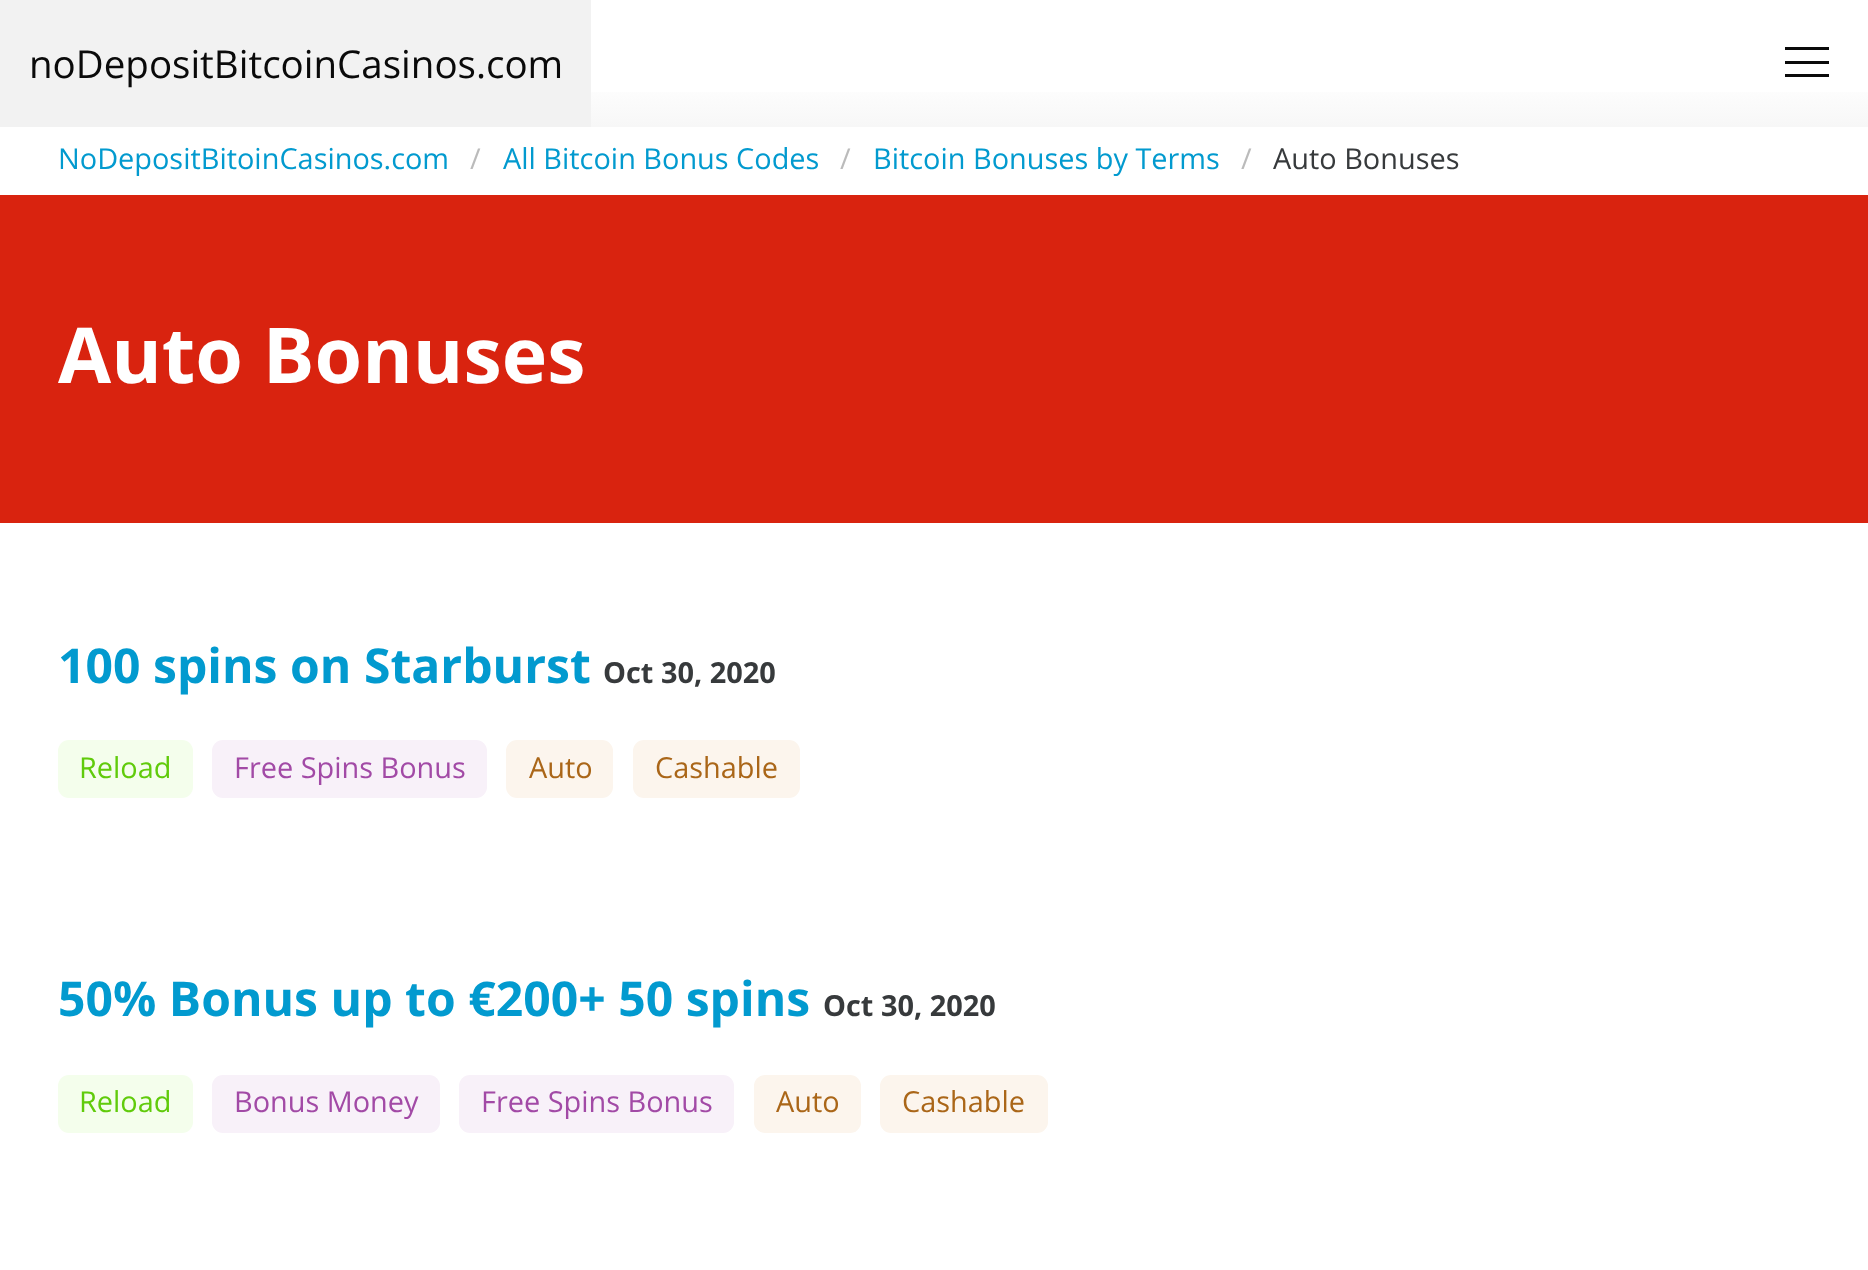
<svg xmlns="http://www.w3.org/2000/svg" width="1868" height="1270">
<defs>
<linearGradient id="g1" gradientUnits="userSpaceOnUse" x1="935" y1="0" x2="935" y2="127"><stop offset="0" stop-color="#fff"/><stop offset="0.6" stop-color="#fff"/><stop offset="1" stop-color="#f7f7f7"/></linearGradient>
</defs>
<rect width="100%" height="100%" fill="#fff"/>
<rect x="591" y="92" width="1277" height="35" fill="url(#g1)"/>
<rect width="591" height="127" fill="#f2f2f2"/>
<text x="29" y="78" style="font-family:Open Sans;font-size:38.5px;fill:#0a0a0a">noDepositBitcoinCasinos.com</text>
<rect x="1785" y="47" width="44" height="3" fill="#0a0a0a"/>
<rect x="1785" y="61" width="44" height="3" fill="#0a0a0a"/>
<rect x="1785" y="74" width="44" height="3" fill="#0a0a0a"/>
<text x="58" y="169" style="font-family:Open Sans;font-size:28.9px;fill:#029acf">NoDepositBitoinCasinos.com</text>
<text x="470" y="169" style="font-family:Open Sans;font-size:28.9px;fill:#bbb">/</text>
<text x="503" y="169" style="font-family:Open Sans;font-size:28.9px;fill:#029acf">All Bitcoin Bonus Codes</text>
<text x="840" y="169" style="font-family:Open Sans;font-size:28.9px;fill:#bbb">/</text>
<text x="873" y="169" style="font-family:Open Sans;font-size:28.9px;fill:#029acf">Bitcoin Bonuses by Terms</text>
<text x="1241" y="169" style="font-family:Open Sans;font-size:28.9px;fill:#bbb">/</text>
<text x="1273" y="169" style="font-family:Open Sans;font-size:28.9px;fill:#373a3c">Auto Bonuses</text>
<rect y="195" width="1868" height="328" fill="#d9230f"/>
<text x="58" y="383" style="font-family:Open Sans;font-size:77px;font-weight:bold;fill:#fff">Auto Bonuses</text>
<text x="58" y="683" style="font-family:Open Sans;font-size:48.1px;font-weight:bold;fill:#029acf">100 spins on Starburst</text>
<text x="603" y="683" style="font-family:Open Sans;font-size:28.9px;font-weight:bold;fill:#373a3c">Oct 30, 2020</text>
<rect x="58" y="740" width="135" height="58" rx="11" fill="#f4feec"/>
<text x="79" y="778" style="font-family:Open Sans;font-size:28.9px;fill:#60cb0b">Reload</text>
<rect x="212" y="740" width="275" height="58" rx="11" fill="#f8f1f9"/>
<text x="234" y="778" style="font-family:Open Sans;font-size:28.9px;fill:#a24aa6">Free Spins Bonus</text>
<rect x="506" y="740" width="107" height="58" rx="11" fill="#fcf5ed"/>
<text x="529" y="778" style="font-family:Open Sans;font-size:28.9px;fill:#aa6618">Auto</text>
<rect x="633" y="740" width="167" height="58" rx="11" fill="#fcf5ed"/>
<text x="655" y="778" style="font-family:Open Sans;font-size:28.9px;fill:#aa6618">Cashable</text>
<text x="58" y="1016" style="font-family:Open Sans;font-size:48.1px;font-weight:bold;fill:#029acf">50% Bonus up to €200+ 50 spins</text>
<text x="823" y="1016" style="font-family:Open Sans;font-size:28.9px;font-weight:bold;fill:#373a3c">Oct 30, 2020</text>
<rect x="58" y="1075" width="135" height="58" rx="11" fill="#f4feec"/>
<text x="79" y="1112" style="font-family:Open Sans;font-size:28.9px;fill:#60cb0b">Reload</text>
<rect x="212" y="1075" width="228" height="58" rx="11" fill="#f8f1f9"/>
<text x="234" y="1112" style="font-family:Open Sans;font-size:28.9px;fill:#a24aa6">Bonus Money</text>
<rect x="459" y="1075" width="275" height="58" rx="11" fill="#f8f1f9"/>
<text x="481" y="1112" style="font-family:Open Sans;font-size:28.9px;fill:#a24aa6">Free Spins Bonus</text>
<rect x="754" y="1075" width="107" height="58" rx="11" fill="#fcf5ed"/>
<text x="776" y="1112" style="font-family:Open Sans;font-size:28.9px;fill:#aa6618">Auto</text>
<rect x="880" y="1075" width="168" height="58" rx="11" fill="#fcf5ed"/>
<text x="902" y="1112" style="font-family:Open Sans;font-size:28.9px;fill:#aa6618">Cashable</text>
</svg>
